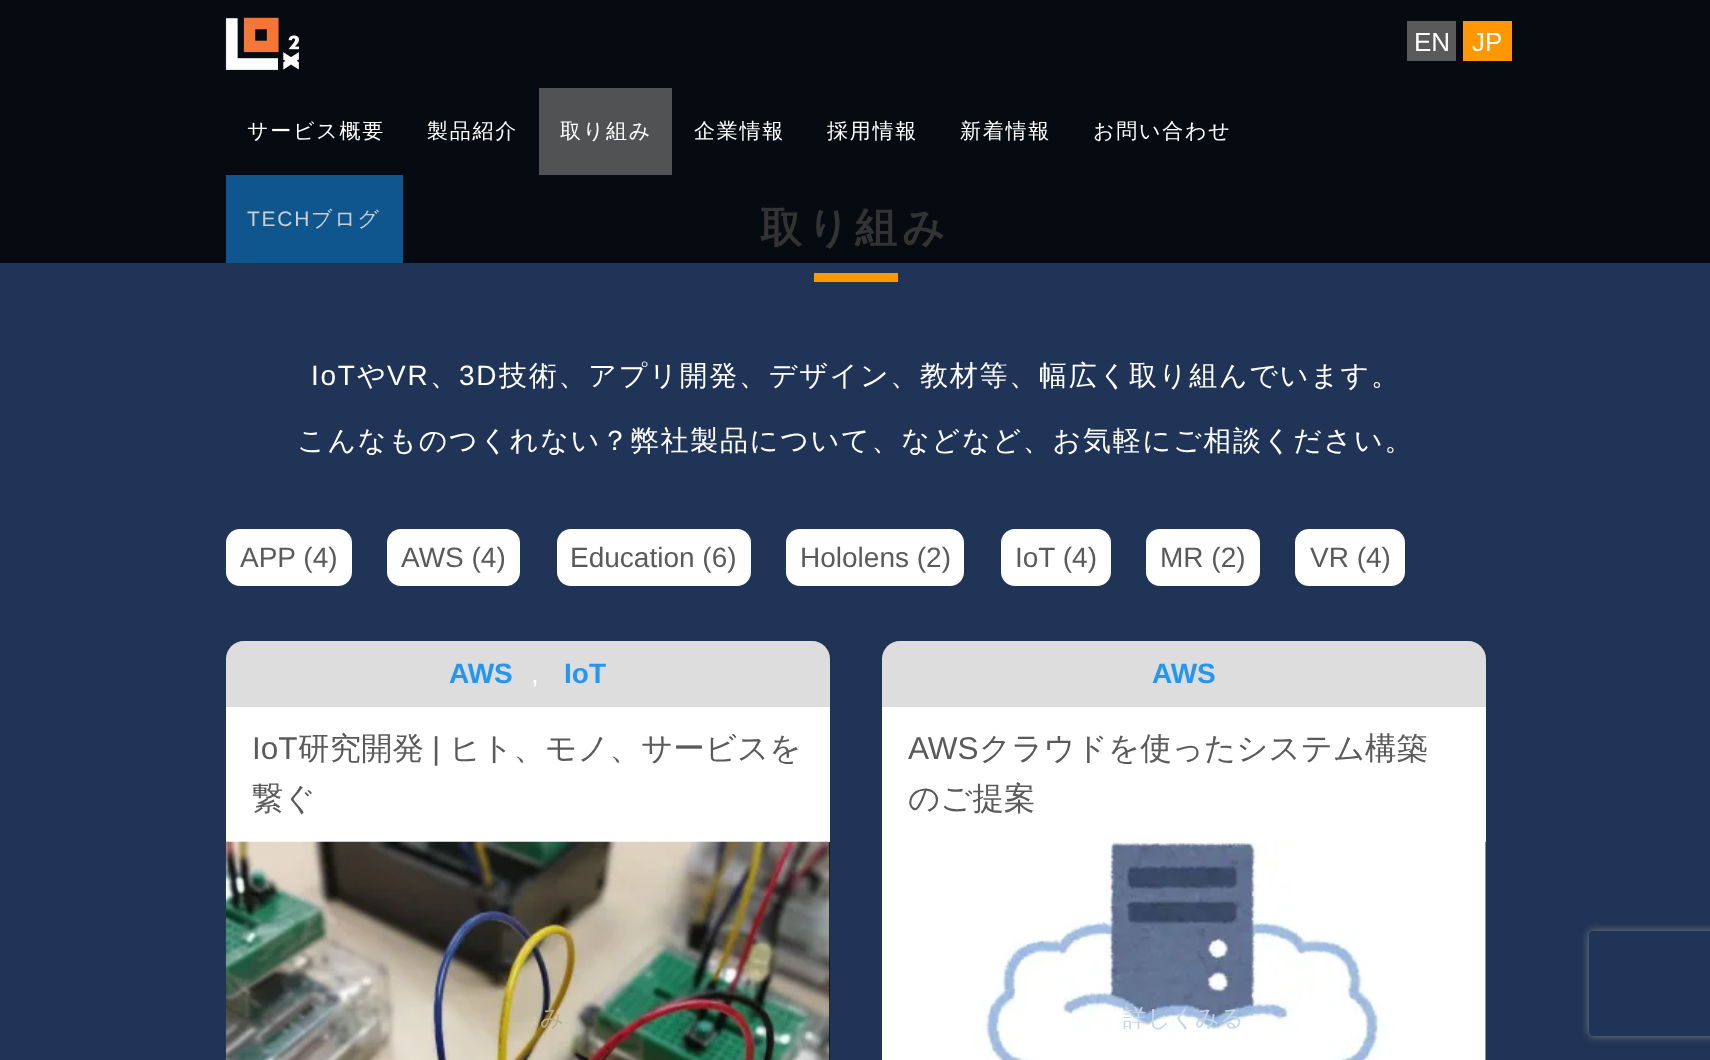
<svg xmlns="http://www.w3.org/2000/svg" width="1710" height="1060">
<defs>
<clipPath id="clip1"><path d="M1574 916h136v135h-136zm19 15h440c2 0 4 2 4 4v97c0 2-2 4-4 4h-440c-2 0-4-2-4-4v-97c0-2 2-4 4-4z" clip-rule="evenodd"/></clipPath>
</defs>
<rect width="100%" height="100%" fill="#1f3457"/>
<rect width="1710" height="263" fill="#060a11"/>
<image x="225" y="17" width="74" height="53" href="media/1.png"/>
<rect x="1407" y="21" width="49" height="40" fill="#5a5a5a"/>
<text x="1414" y="51" style="font-family:Liberation Sans;font-size:26px;fill:#fff">EN</text>
<rect x="1463" y="21" width="49" height="40" fill="#ff9800"/>
<text x="1472" y="51" style="font-family:Liberation Sans;font-size:26px;fill:#fff">JP</text>
<text x="247" y="138" style="font-family:WenQuanYi Zen Hei;font-size:21px;font-weight:500;letter-spacing:1.75px;fill:#fff">サービス概要</text>
<text x="427" y="138" style="font-family:WenQuanYi Zen Hei;font-size:21px;font-weight:500;letter-spacing:1.75px;fill:#fff">製品紹介</text>
<rect x="539" y="88" width="133" height="87" fill="#515253"/>
<text x="560" y="138" style="font-family:WenQuanYi Zen Hei;font-size:21px;font-weight:500;letter-spacing:1.75px;fill:#fff">取り組み</text>
<text x="694" y="138" style="font-family:WenQuanYi Zen Hei;font-size:21px;font-weight:500;letter-spacing:1.75px;fill:#fff">企業情報</text>
<text x="827" y="138" style="font-family:WenQuanYi Zen Hei;font-size:21px;font-weight:500;letter-spacing:1.75px;fill:#fff">採用情報</text>
<text x="960" y="138" style="font-family:WenQuanYi Zen Hei;font-size:21px;font-weight:500;letter-spacing:1.75px;fill:#fff">新着情報</text>
<text x="1093" y="138" style="font-family:WenQuanYi Zen Hei;font-size:21px;font-weight:500;letter-spacing:1.75px;fill:#fff">お問い合わせ</text>
<rect x="226" y="175" width="177" height="88" fill="#0e568d"/>
<text x="247" y="226" style="font-family:Liberation Sans;font-size:21px;letter-spacing:1.75px;fill:#cdcecf">TECH</text>
<text x="311" y="226" style="font-family:WenQuanYi Zen Hei;font-size:21px;font-weight:500;letter-spacing:1.75px;fill:#cdcecf">ブログ</text>
<text x="760" y="242" style="font-family:WenQuanYi Zen Hei;font-size:42px;font-weight:bold;letter-spacing:5px;fill:#333">取り組み</text>
<rect x="814" y="273" width="84" height="9" fill="#ff9800"/>
<text x="311" y="385" style="font-family:Liberation Sans;font-size:28px;letter-spacing:1.75px;fill:#fff">IoT</text>
<text x="357" y="385" style="font-family:WenQuanYi Zen Hei;font-size:28px;font-weight:500;letter-spacing:1.75px;fill:#fff">や</text>
<text x="387" y="385" style="font-family:Liberation Sans;font-size:28px;letter-spacing:1.75px;fill:#fff">VR</text>
<text x="430" y="385" style="font-family:WenQuanYi Zen Hei;font-size:28px;font-weight:500;letter-spacing:1.75px;fill:#fff">、</text>
<text x="459" y="385" style="font-family:Liberation Sans;font-size:28px;letter-spacing:1.75px;fill:#fff">3D</text>
<text x="499" y="385" style="font-family:WenQuanYi Zen Hei;font-size:28px;font-weight:500;letter-spacing:1.75px;fill:#fff">技術、アプリ開発、デザイン、教材等、幅広く取り組んでいます。</text>
<text x="297" y="450" style="font-family:WenQuanYi Zen Hei;font-size:28px;font-weight:500;letter-spacing:1.75px;fill:#fff">こんなものつくれない？弊社製品について、などなど、お気軽にご相談ください。</text>
<rect x="226" y="529" width="126" height="57" rx="14" fill="#fff"/>
<text x="240" y="567" style="font-family:Liberation Sans;font-size:28px;fill:#5a5a5a">APP (4)</text>
<rect x="387" y="529" width="133" height="57" rx="14" fill="#fff"/>
<text x="401" y="567" style="font-family:Liberation Sans;font-size:28px;fill:#5a5a5a">AWS (4)</text>
<rect x="557" y="529" width="194" height="57" rx="14" fill="#fff"/>
<text x="570" y="567" style="font-family:Liberation Sans;font-size:28px;fill:#5a5a5a">Education (6)</text>
<rect x="786" y="529" width="178" height="57" rx="14" fill="#fff"/>
<text x="800" y="567" style="font-family:Liberation Sans;font-size:28px;fill:#5a5a5a">Hololens (2)</text>
<rect x="1001" y="529" width="110" height="57" rx="14" fill="#fff"/>
<text x="1015" y="567" style="font-family:Liberation Sans;font-size:28px;fill:#5a5a5a">IoT (4)</text>
<rect x="1146" y="529" width="114" height="57" rx="14" fill="#fff"/>
<text x="1160" y="567" style="font-family:Liberation Sans;font-size:28px;fill:#5a5a5a">MR (2)</text>
<rect x="1295" y="529" width="110" height="57" rx="14" fill="#fff"/>
<text x="1310" y="567" style="font-family:Liberation Sans;font-size:28px;fill:#5a5a5a">VR (4)</text>
<path d="M244 641h568c10 0 18 8 18 18v48h-604v-48c0-10 8-18 18-18z" fill="#ddd"/>
<text x="449" y="683" style="font-family:Liberation Sans;font-size:28px;font-weight:bold;fill:#2196f3">AWS</text>
<text x="531" y="683" style="font-family:Liberation Sans;font-size:28px;fill:#fff">,</text>
<text x="564" y="683" style="font-family:Liberation Sans;font-size:28px;font-weight:bold;fill:#2196f3">IoT</text>
<rect x="226" y="707" width="604" height="135" fill="#fff"/>
<text x="252" y="759" style="font-family:Liberation Sans;font-size:31.5px;fill:#5a5a5a">IoT</text>
<text x="298" y="759" style="font-family:WenQuanYi Zen Hei;font-size:31.5px;font-weight:500;fill:#5a5a5a">研究開発</text>
<text x="432" y="759" style="font-family:Liberation Sans;font-size:31.5px;fill:#5a5a5a">|</text>
<text x="449" y="759" style="font-family:WenQuanYi Zen Hei;font-size:31.5px;font-weight:500;fill:#5a5a5a">ヒト、モノ、サービスを</text>
<text x="252" y="809" style="font-family:WenQuanYi Zen Hei;font-size:31.5px;font-weight:500;fill:#5a5a5a">繋ぐ</text>
<rect x="829" y="842" width="1" height="218" fill="#000"/>
<image x="225" y="841" width="605" height="219" href="media/2.png"/>
<text x="540" y="1026" style="font-family:WenQuanYi Zen Hei;font-size:23.75px;font-weight:500;fill:#b9ad8f">み</text>
<path d="M900 641h568c10 0 18 8 18 18v48h-604v-48c0-10 8-18 18-18z" fill="#ddd"/>
<text x="1152" y="683" style="font-family:Liberation Sans;font-size:28px;font-weight:bold;fill:#2196f3">AWS</text>
<rect x="882" y="707" width="604" height="135" fill="#fff"/>
<text x="908" y="759" style="font-family:Liberation Sans;font-size:31.5px;fill:#5a5a5a">AWS</text>
<text x="979" y="759" style="font-family:WenQuanYi Zen Hei;font-size:31.5px;font-weight:500;fill:#5a5a5a">クラウドを使ったシステム構築</text>
<text x="908" y="809" style="font-family:WenQuanYi Zen Hei;font-size:31.5px;font-weight:500;fill:#5a5a5a">のご提案</text>
<rect x="1485" y="842" width="1" height="218" fill="#000"/>
<image x="882" y="841" width="604" height="219" href="media/3.png"/>
<text x="1123" y="1026" style="font-family:WenQuanYi Zen Hei;font-size:23.75px;font-weight:500;fill:#c7d5e8">詳しくみる</text>
<g clip-path="url(#clip1)">
<rect x="1589" y="931" width="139" height="105" rx="4" fill="#808080" filter="blur(4.5px)"/>
</g>
</svg>
